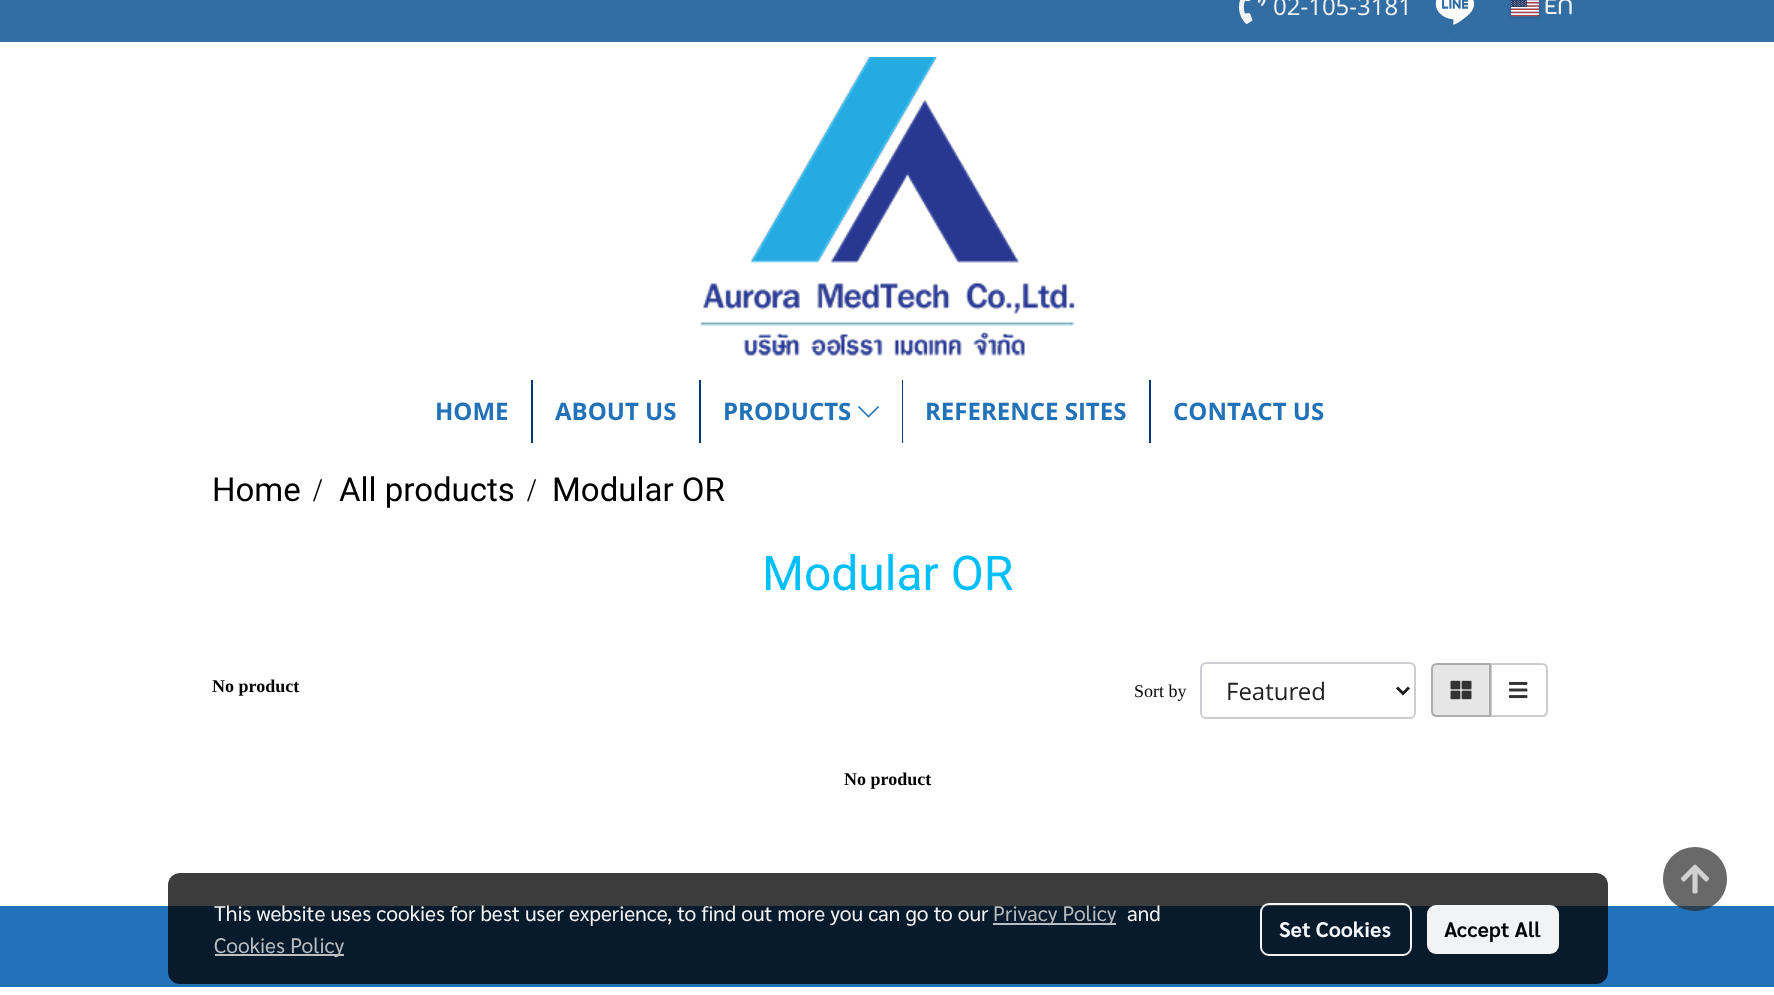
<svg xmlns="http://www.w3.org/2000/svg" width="1774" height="995">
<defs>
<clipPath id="clip1"><path d="M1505 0h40v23h-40zm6-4h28v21h-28z" clip-rule="evenodd"/></clipPath>
</defs>
<rect width="100%" height="100%" fill="#fff"/>
<rect width="1774" height="42" fill="#326ea4"/>
<image x="1239" y="0" width="27" height="24" href="media/1.png"/>
<text x="1273" y="15" style="font-family:Open Sans;font-size:24px;fill:#f3f3f3">02-105-3181</text>
<image x="1435" y="0" width="39" height="33" href="media/2.png"/>
<g clip-path="url(#clip1)">
<rect x="1511" y="-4" width="28" height="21" fill="#00000040" filter="blur(1.5px)"/>
</g>
<image x="1511" y="0" width="28" height="17" href="media/3.png"/>
<text x="1544" y="14" style="font-family:Kodchasan;font-size:21px;font-weight:bold;fill:#f3f3f3">EN</text>
<image x="700" y="57" width="375" height="299" href="media/4.png"/>
<rect x="531" y="380" width="2" height="63" fill="#003876"/>
<text x="435" y="420" style="font-family:Open Sans;font-size:24px;font-weight:bold;fill:#2272b9">HOME</text>
<rect x="699" y="380" width="2" height="63" fill="#003876"/>
<text x="555" y="420" style="font-family:Open Sans;font-size:24px;font-weight:bold;fill:#2272b9">ABOUT US</text>
<rect x="902" y="380" width="1" height="63" fill="#003876"/>
<text x="723" y="420" style="font-family:Open Sans;font-size:24px;font-weight:bold;fill:#2272b9">PRODUCTS</text>
<image x="858" y="406" width="21" height="12" href="media/5.png"/>
<rect x="1149" y="380" width="2" height="63" fill="#003876"/>
<text x="925" y="420" style="font-family:Open Sans;font-size:24px;font-weight:bold;fill:#2272b9">REFERENCE SITES</text>
<text x="1173" y="420" style="font-family:Open Sans;font-size:24px;font-weight:bold;fill:#2272b9">CONTACT US</text>
<text x="212" y="501" style="font-family:Roboto;font-size:33px;fill:#000">Home</text>
<text x="313" y="501" style="font-family:Liberation Serif;font-size:33px;fill:#000">/</text>
<text x="339" y="501" style="font-family:Roboto;font-size:33px;fill:#000">All products</text>
<text x="527" y="501" style="font-family:Liberation Serif;font-size:33px;fill:#000">/</text>
<text x="552" y="501" style="font-family:Roboto;font-size:33px;fill:#000">Modular OR</text>
<text x="762" y="590" style="font-family:Roboto;font-size:48px;fill:#00bfff">Modular OR</text>
<text x="212" y="692" style="font-family:Liberation Serif;font-size:18px;font-weight:bold;fill:#000">No product</text>
<text x="1134" y="697" style="font-family:Liberation Serif;font-size:18px;fill:#000">Sort by</text>
<path d="M1206 664h204c2 0 4 3 4 5v46c1-1 1-2 1-3v-44c0-3-2-5-5-5h-203c-3 0-5 2-5 5v1c0-2 2-5 4-5z" fill="#ececec"/>
<rect x="1201" y="663" width="214" height="55" rx="5" fill="none" stroke="#cdced2" stroke-width="2"/>
<path d="M1397 687.5l6 6l6-6" fill="none" stroke="#212121" stroke-width="3"/>
<text x="1226" y="700" style="font-family:Open Sans;font-size:24px;fill:#212121">Featured</text>
<path d="M1491 664h51c3 0 5 2 5 5v42c0 3-2 5-5 5h-51z" fill="none" stroke="#ccc" stroke-width="2"/>
<path d="M1437 664h53v52h-53c-3 0-5-2-5-5v-42c0-3 2-5 5-5z" fill="#e6e6e6" stroke="#adadad" stroke-width="2"/>
<image x="1450" y="680" width="22" height="20" href="media/6.png"/>
<image x="1509" y="681" width="19" height="18" href="media/7.png"/>
<text x="844" y="785" style="font-family:Liberation Serif;font-size:18px;font-weight:bold;fill:#000">No product</text>
<rect y="906" width="1774" height="81" fill="#2272b9"/>
<path d="M1695 847c-18 0-32 14-32 32c0 18 14 32 32 32c18 0 32-14 32-32c0-18-14-32-32-32z" fill="#2b2a2ab3"/>
<image x="1681" y="864" width="28" height="30" href="media/8.png"/>
<rect x="168" y="873" width="1440" height="111" rx="12" fill="#000000c2"/>
<text x="214" y="921" style="font-family:Sarabun;font-size:21px;fill:#f3f3f3">This website uses cookies for best user experience, to find out more you can go to our</text>
<rect x="993" y="923" width="123" height="2" fill="#babec2"/>
<text x="993" y="921" style="font-family:Sarabun;font-size:21px;fill:#b9babb">Privacy Policy</text>
<text x="1127" y="921" style="font-family:Sarabun;font-size:21px;fill:#f3f3f3">and</text>
<rect x="215" y="954" width="129" height="2" fill="#babec2"/>
<text x="214" y="953" style="font-family:Sarabun;font-size:21px;fill:#babec2">Cookies Policy</text>
<rect x="1261" y="904" width="150" height="51" rx="8" fill="none" stroke="#fffffff2" stroke-width="2"/>
<text x="1279" y="937" style="font-family:Sarabun;font-size:21px;font-weight:bold;fill:#f4f8fc">Set Cookies</text>
<rect x="1427" y="905" width="132" height="49" rx="9" fill="#fffffff2"/>
<text x="1444" y="937" style="font-family:Sarabun;font-size:21px;font-weight:bold;fill:#020609">Accept All</text>
</svg>
